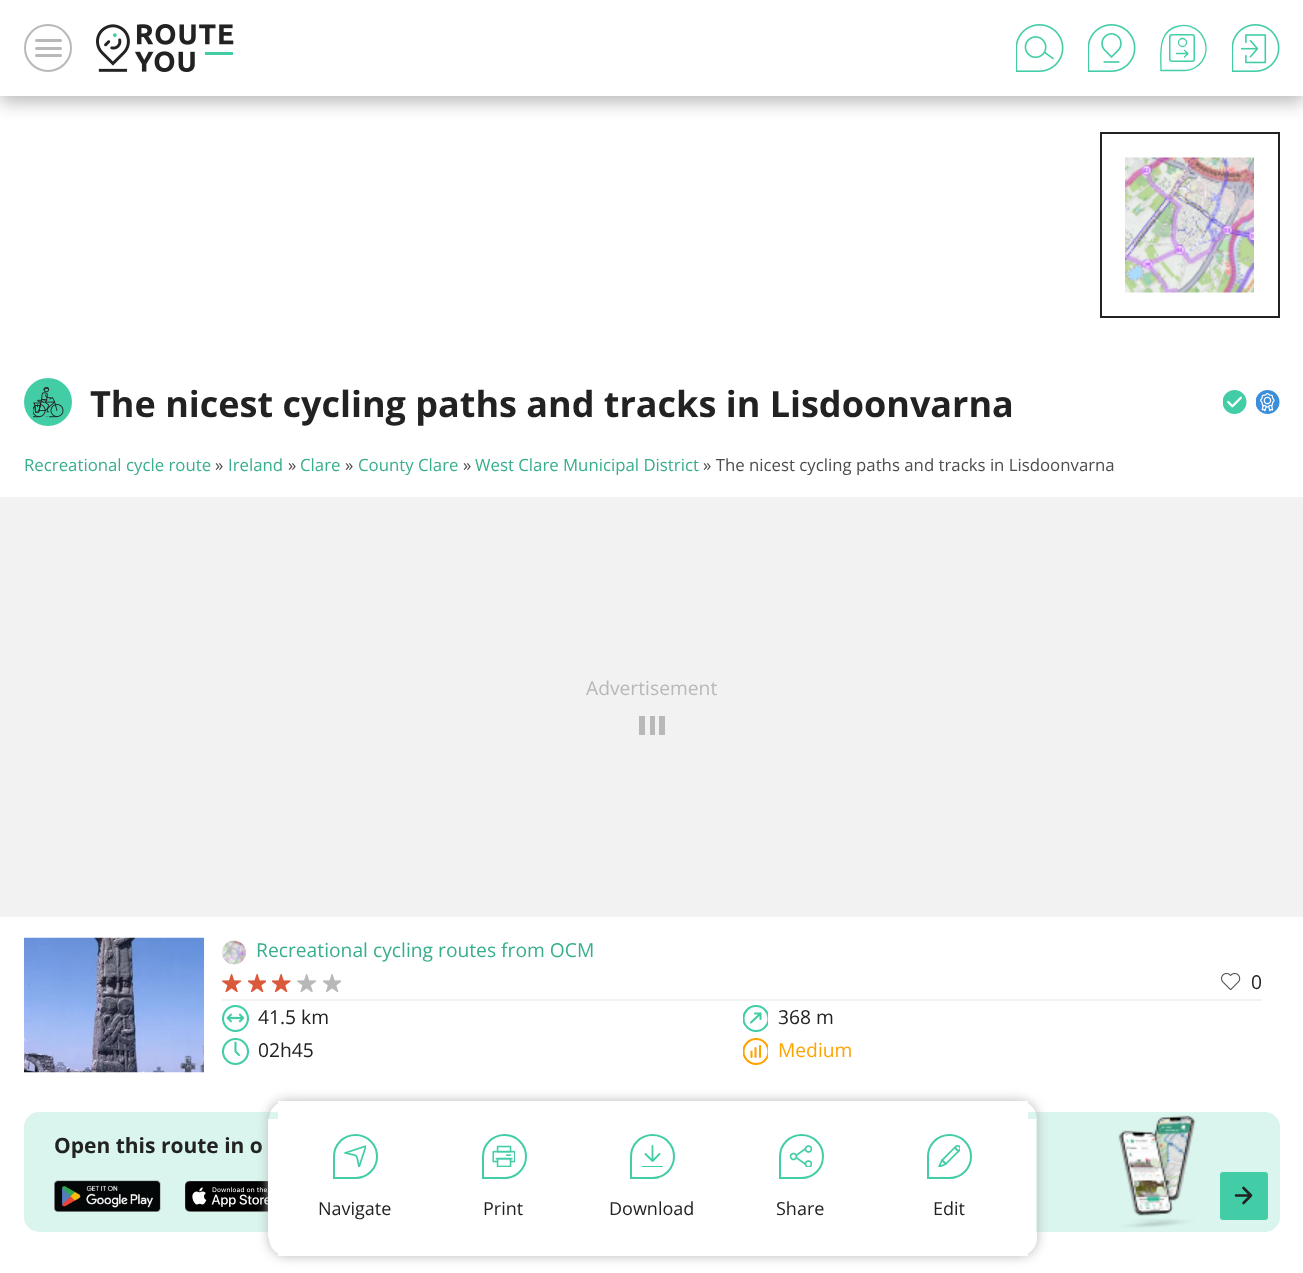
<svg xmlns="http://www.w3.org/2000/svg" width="1303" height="1273">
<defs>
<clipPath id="clip1"><rect x="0" y="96" width="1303" height="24"/></clipPath>
<clipPath id="clip2"><rect x="743" y="1005" width="25" height="27"/></clipPath>
<clipPath id="clip3"><rect x="743" y="1038" width="25" height="27"/></clipPath>
<clipPath id="clip4"><path d="M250 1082h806v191h-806zm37 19h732c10 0 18 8 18 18v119c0 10-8 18-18 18h-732c-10 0-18-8-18-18v-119c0-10 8-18 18-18z" clip-rule="evenodd"/></clipPath>
<clipPath id="clip5"><rect x="344" y="1145" width="22" height="22"/></clipPath>
<clipPath id="clip6"><rect x="641" y="1145" width="22" height="22"/></clipPath>
</defs>
<rect width="100%" height="100%" fill="#fff"/>
<g clip-path="url(#clip1)">
<rect y="6" width="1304" height="96" fill="#b8b8b8" filter="blur(9px)"/>
</g>
<circle cx="48" cy="48" r="23" fill="none" stroke="#b8b8b8" stroke-width="2"/>
<rect x="35" y="39" width="27" height="3" rx="1.5" fill="#b8b8b8"/>
<rect x="35" y="47" width="27" height="3" rx="1.5" fill="#b8b8b8"/>
<rect x="35" y="54" width="27" height="3" rx="1.5" fill="#b8b8b8"/>
<image x="96" y="24" width="138" height="48" href="media/1.png"/>
<image x="1016" y="24" width="48" height="48" href="media/2.png"/>
<image x="1088" y="24" width="48" height="48" href="media/3.png"/>
<path d="M1183.5 70.5h-22.5c0-16.5-4-40.5 18-44.5c24-5 37.5 27 17 41c-3.5 2.5-8 3.5-12.5 3.5z" fill="none" stroke="#42cda7" stroke-width="1.3"/>
<circle cx="1182.5" cy="42.5" r="4" fill="none" stroke="#42cda7" stroke-width="1.3"/>
<rect x="1169.75" y="34.75" width="24.5" height="26.5" rx="2.25" fill="none" stroke="#42cda7" stroke-width="1.5"/>
<path d="M1176.5 53.5h11.5m-3.5-3l3.5 3l-3.5 3.5" fill="none" stroke="#42cda7" stroke-width="1.3" stroke-linecap="round" stroke-linejoin="round"/>
<image x="1232" y="24" width="48" height="48" href="media/4.png"/>
<rect x="1101" y="133" width="178" height="184" fill="none" stroke="#222" stroke-width="2"/>
<image x="1125" y="157" width="129" height="136" href="media/5.png"/>
<circle cx="48" cy="402" r="24" fill="#42cda7"/>
<image x="33" y="387" width="31" height="31" href="media/6.png"/>
<text x="90" y="417" style="font-family:Open Sans;font-size:36px;font-weight:bold;fill:#222">The nicest cycling paths and tracks in Lisdoonvarna</text>
<image x="1223" y="390" width="24" height="24" href="media/7.png"/>
<image x="1256" y="390" width="24" height="24" href="media/8.png"/>
<text x="24" y="471" style="font-family:Open Sans;font-size:16.8px;fill:#38ae8e">Recreational cycle route</text>
<text x="215" y="471" style="font-family:Open Sans;font-size:16.8px;fill:#4d4d4d">»</text>
<text x="228" y="471" style="font-family:Open Sans;font-size:16.8px;fill:#38ae8e">Ireland</text>
<text x="288" y="471" style="font-family:Open Sans;font-size:16.8px;fill:#4d4d4d">»</text>
<text x="300" y="471" style="font-family:Open Sans;font-size:16.8px;fill:#38ae8e">Clare</text>
<text x="345" y="471" style="font-family:Open Sans;font-size:16.8px;fill:#4d4d4d">»</text>
<text x="358" y="471" style="font-family:Open Sans;font-size:16.8px;fill:#38ae8e">County Clare</text>
<text x="463" y="471" style="font-family:Open Sans;font-size:16.8px;fill:#4d4d4d">»</text>
<text x="475" y="471" style="font-family:Open Sans;font-size:16.8px;fill:#38ae8e">West Clare Municipal District</text>
<text x="703" y="471" style="font-family:Open Sans;font-size:16.8px;fill:#4d4d4d">» The nicest cycling paths and tracks in Lisdoonvarna</text>
<rect y="497" width="1303" height="420" fill="#f2f2f2"/>
<text x="586" y="695" style="font-family:Open Sans;font-size:19.25px;fill:#b8b8b8">Advertisement</text>
<rect x="650" y="716" width="5" height="19" fill="#b8b8b8"/>
<rect x="639" y="716" width="6" height="19" fill="#b8b8b8"/>
<rect x="659" y="716" width="6" height="19" fill="#b8b8b8"/>
<image x="24" y="937" width="180" height="136" href="media/9.png"/>
<image x="222" y="940" width="24" height="25" href="media/10.png"/>
<text x="256" y="957" style="font-family:Open Sans;font-size:19.25px;fill:#38ae8e">Recreational cycling routes from OCM</text>
<image x="222" y="974" width="20" height="18" href="media/11.png"/>
<image x="248" y="974" width="18" height="18" href="media/12.png"/>
<image x="272" y="974" width="19" height="18" href="media/13.png"/>
<image x="297" y="974" width="20" height="18" href="media/14.png"/>
<image x="323" y="974" width="18" height="18" href="media/15.png"/>
<image x="1221" y="973" width="20" height="17" href="media/16.png"/>
<text x="1251" y="989" style="font-family:Open Sans;font-size:19.25px;fill:#222">0</text>
<rect x="222" y="999" width="1040" height="2" fill="#f2f2f2"/>
<image x="222" y="1005" width="27" height="27" href="media/17.png"/>
<text x="258" y="1024" style="font-family:Open Sans;font-size:19.25px;fill:#222">41.5 km</text>
<g clip-path="url(#clip2)">
<circle cx="756" cy="1018.5" r="12.5" fill="none" stroke="#42cda7" stroke-width="2.1"/>
</g>
<path d="M751 1022.5l9.5-9h-5.5m-4 9l9.5-9v5.5" fill="none" stroke="#42cda7" stroke-width="2.1" stroke-linecap="round" stroke-linejoin="round"/>
<text x="778" y="1024" style="font-family:Open Sans;font-size:19.25px;fill:#222">368 m</text>
<circle cx="235.5" cy="1051.5" r="12.5" fill="none" stroke="#42cda7" stroke-width="2.1"/>
<path d="M235.5 1051.5v-9m3.5 12.5l-3.5-3.5" fill="none" stroke="#42cda7" stroke-width="2.1" stroke-linecap="round"/>
<text x="258" y="1057" style="font-family:Open Sans;font-size:19.25px;fill:#222">02h45</text>
<g clip-path="url(#clip3)">
<circle cx="756" cy="1051.5" r="12.5" fill="none" stroke="#ffa300" stroke-width="2.1"/>
</g>
<path d="M760 1046v11m-8.5-5.5v5.5m4-9v9" fill="none" stroke="#ffa300" stroke-width="2.1" stroke-linecap="round" stroke-linejoin="round"/>
<text x="778" y="1057" style="font-family:Open Sans;font-size:19.25px;fill:#ffa300">Medium</text>
<rect x="24" y="1112" width="1256" height="120" rx="15" fill="#d9f5ed"/>
<text x="54" y="1153" style="font-family:Open Sans;font-size:21px;font-weight:bold;fill:#222">Open this route in o</text>
<image x="54" y="1180" width="107" height="32" href="media/18.png"/>
<image x="185" y="1181" width="83" height="31" href="media/19.png"/>
<image x="1118" y="1115" width="78" height="113" href="media/20.png"/>
<rect x="1220" y="1172" width="48" height="48" rx="3" fill="#42cda7"/>
<path d="M1236 1195.5h15m0 0l-7.5-7.5m7.5 7.5l-7.5 7.5" fill="none" stroke="#222" stroke-width="2.6" stroke-linecap="round" stroke-linejoin="round"/>
<g clip-path="url(#clip4)">
<rect x="269" y="1101" width="768" height="155" rx="18" fill="#b8b8b8" filter="blur(6px)"/>
</g>
<path d="M286 1119h750v119h-768v-119z" fill="#fff"/>
<rect x="278" y="1101" width="750" height="18" fill="#fff"/>
<rect x="278" y="1253" width="750" height="3" fill="#fff"/>
<path d="M355.5 1135c12 0 21.5 9.5 21.5 21.5c0 12-9.5 21.5-21.5 21.5h-21.5v-21.5c0-12 9.5-21.5 21.5-21.5z" fill="none" stroke="#42cda7" stroke-width="2"/>
<g clip-path="url(#clip5)">
<path d="M359 1167c-3-14 0-11-14-14l21-7z" fill="none" stroke="#42cda7" stroke-width="1.7" stroke-linecap="round" stroke-linejoin="round"/>
</g>
<text x="318" y="1215" style="font-family:Open Sans;font-size:18px;fill:#222">Navigate</text>
<path d="M504.5 1135c12 0 21.5 9.5 21.5 21.5c0 12-9.5 21.5-21.5 21.5h-21.5v-21.5c0-12 9.5-21.5 21.5-21.5z" fill="none" stroke="#42cda7" stroke-width="2"/>
<image x="492" y="1145" width="23" height="22" href="media/21.png"/>
<text x="483" y="1215" style="font-family:Open Sans;font-size:18px;fill:#222">Print</text>
<path d="M652.5 1135c12 0 21.5 9.5 21.5 21.5c0 12-9.5 21.5-21.5 21.5h-21.5v-21.5c0-12 9.5-21.5 21.5-21.5z" fill="none" stroke="#42cda7" stroke-width="2"/>
<g clip-path="url(#clip6)">
<path d="M652.5 1146v15m-7-7l7 7l7-7m-17 13h20" fill="none" stroke="#42cda7" stroke-width="1.8" stroke-linecap="round" stroke-linejoin="round"/>
</g>
<text x="609" y="1215" style="font-family:Open Sans;font-size:18px;fill:#222">Download</text>
<path d="M801.5 1135c12 0 21.5 9.5 21.5 21.5c0 12-9.5 21.5-21.5 21.5h-21.5v-21.5c0-12 9.5-21.5 21.5-21.5z" fill="none" stroke="#42cda7" stroke-width="2"/>
<image x="789" y="1145" width="23" height="22" href="media/22.png"/>
<text x="776" y="1215" style="font-family:Open Sans;font-size:18px;fill:#222">Share</text>
<path d="M949.5 1135c12 0 21.5 9.5 21.5 21.5c0 12-9.5 21.5-21.5 21.5h-21.5v-21.5c0-12 9.5-21.5 21.5-21.5z" fill="none" stroke="#42cda7" stroke-width="2"/>
<image x="938" y="1145" width="22" height="22" href="media/23.png"/>
<text x="933" y="1215" style="font-family:Open Sans;font-size:18px;fill:#222">Edit</text>
</svg>
